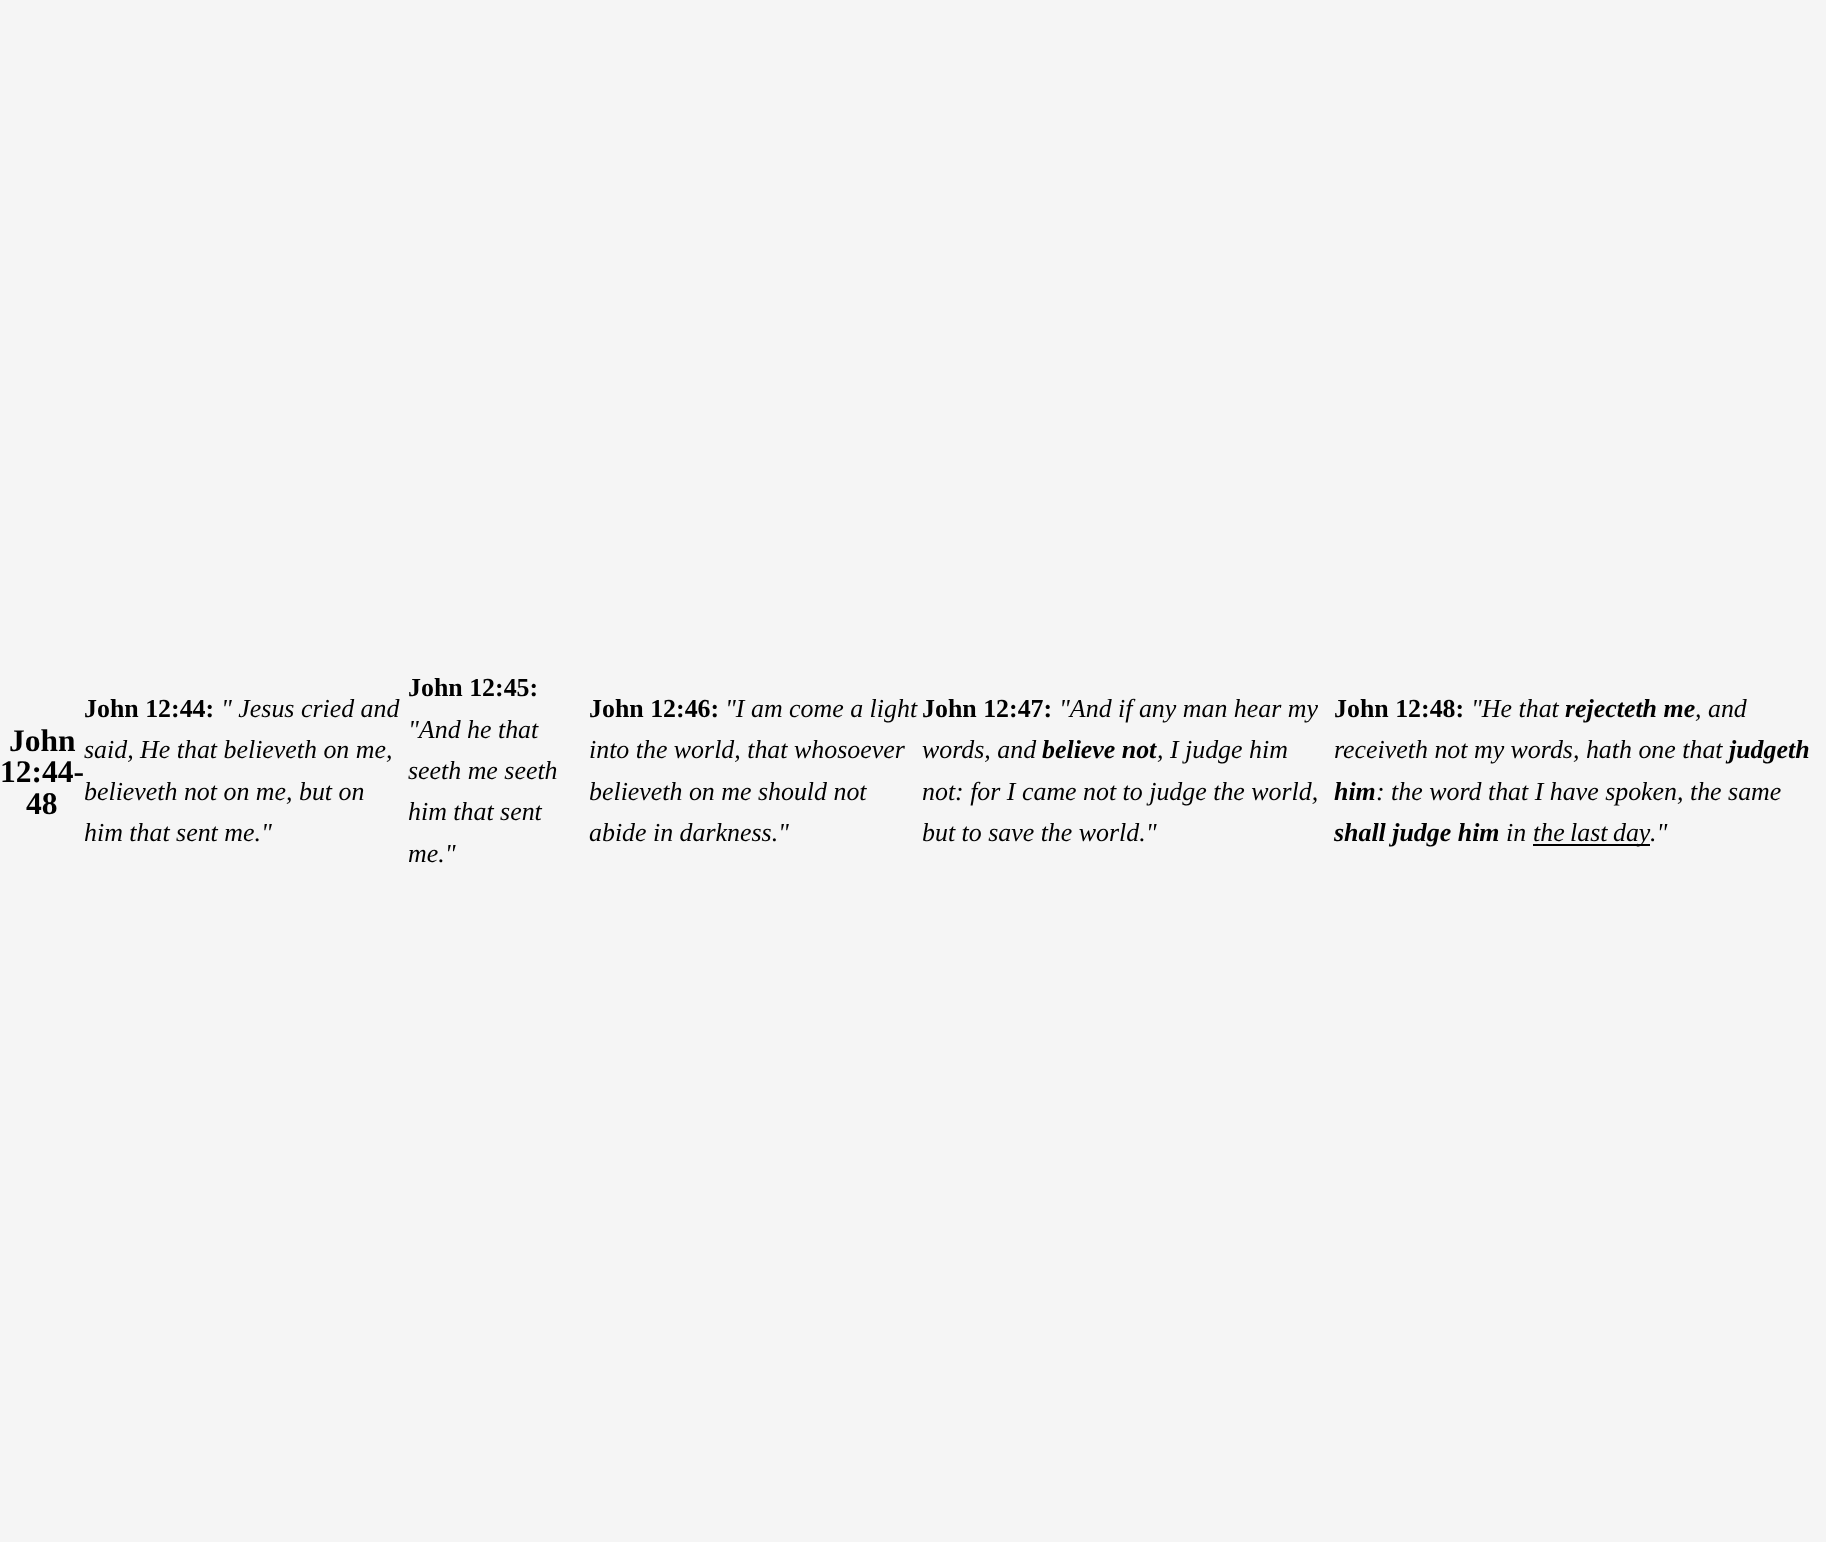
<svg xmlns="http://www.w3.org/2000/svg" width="1826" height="1542">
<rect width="100%" height="100%" fill="#f5f5f5"/>
<text x="9" y="751" style="font-family:Liberation Serif;font-size:31.5px;font-weight:bold;fill:#000">John</text>
<text x="0" y="782" style="font-family:Liberation Serif;font-size:31.5px;font-weight:bold;fill:#000">12:44-</text>
<text x="26" y="814" style="font-family:Liberation Serif;font-size:31.5px;font-weight:bold;fill:#000">48</text>
<text x="84" y="717" style="font-family:Liberation Serif;font-size:25.9px;font-weight:bold;fill:#000">John 12:44:</text>
<text x="221" y="717" style="font-family:Liberation Serif;font-size:25.9px;font-style:italic;fill:#000">" Jesus cried and</text>
<text x="84" y="758" style="font-family:Liberation Serif;font-size:25.9px;font-style:italic;fill:#000">said, He that believeth on me,</text>
<text x="84" y="800" style="font-family:Liberation Serif;font-size:25.9px;font-style:italic;fill:#000">believeth not on me, but on</text>
<text x="84" y="841" style="font-family:Liberation Serif;font-size:25.9px;font-style:italic;fill:#000">him that sent me."</text>
<text x="408" y="696" style="font-family:Liberation Serif;font-size:25.9px;font-weight:bold;fill:#000">John 12:45:</text>
<text x="408" y="738" style="font-family:Liberation Serif;font-size:25.9px;font-style:italic;fill:#000">"And he that</text>
<text x="408" y="779" style="font-family:Liberation Serif;font-size:25.9px;font-style:italic;fill:#000">seeth me seeth</text>
<text x="408" y="820" style="font-family:Liberation Serif;font-size:25.9px;font-style:italic;fill:#000">him that sent</text>
<text x="408" y="862" style="font-family:Liberation Serif;font-size:25.9px;font-style:italic;fill:#000">me."</text>
<text x="589" y="717" style="font-family:Liberation Serif;font-size:25.9px;font-weight:bold;fill:#000">John 12:46:</text>
<text x="725" y="717" style="font-family:Liberation Serif;font-size:25.9px;font-style:italic;fill:#000">"I am come a light</text>
<text x="589" y="758" style="font-family:Liberation Serif;font-size:25.9px;font-style:italic;fill:#000">into the world, that whosoever</text>
<text x="589" y="800" style="font-family:Liberation Serif;font-size:25.9px;font-style:italic;fill:#000">believeth on me should not</text>
<text x="589" y="841" style="font-family:Liberation Serif;font-size:25.9px;font-style:italic;fill:#000">abide in darkness."</text>
<text x="922" y="717" style="font-family:Liberation Serif;font-size:25.9px;font-weight:bold;fill:#000">John 12:47:</text>
<text x="1059" y="717" style="font-family:Liberation Serif;font-size:25.9px;font-style:italic;fill:#000">"And if any man hear my</text>
<text x="922" y="758" style="font-family:Liberation Serif;font-size:25.9px;font-style:italic;fill:#000">words, and</text>
<text x="1042" y="758" style="font-family:Liberation Serif;font-size:25.9px;font-weight:bold;font-style:italic;fill:#000">believe not</text>
<text x="1157" y="758" style="font-family:Liberation Serif;font-size:25.9px;font-style:italic;fill:#000">, I judge him</text>
<text x="922" y="800" style="font-family:Liberation Serif;font-size:25.9px;font-style:italic;fill:#000">not: for I came not to judge the world,</text>
<text x="922" y="841" style="font-family:Liberation Serif;font-size:25.9px;font-style:italic;fill:#000">but to save the world."</text>
<text x="1334" y="717" style="font-family:Liberation Serif;font-size:25.9px;font-weight:bold;fill:#000">John 12:48:</text>
<text x="1471" y="717" style="font-family:Liberation Serif;font-size:25.9px;font-style:italic;fill:#000">"He that</text>
<text x="1565" y="717" style="font-family:Liberation Serif;font-size:25.9px;font-weight:bold;font-style:italic;fill:#000">rejecteth me</text>
<text x="1695" y="717" style="font-family:Liberation Serif;font-size:25.9px;font-style:italic;fill:#000">, and</text>
<text x="1334" y="758" style="font-family:Liberation Serif;font-size:25.9px;font-style:italic;fill:#000">receiveth not my words, hath one that</text>
<text x="1729" y="758" style="font-family:Liberation Serif;font-size:25.9px;font-weight:bold;font-style:italic;fill:#000">judgeth</text>
<text x="1334" y="800" style="font-family:Liberation Serif;font-size:25.9px;font-weight:bold;font-style:italic;fill:#000">him</text>
<text x="1376" y="800" style="font-family:Liberation Serif;font-size:25.9px;font-style:italic;fill:#000">: the word that I have spoken, the same</text>
<text x="1334" y="841" style="font-family:Liberation Serif;font-size:25.9px;font-weight:bold;font-style:italic;fill:#000">shall judge him</text>
<text x="1506" y="841" style="font-family:Liberation Serif;font-size:25.9px;font-style:italic;fill:#000">in</text>
<rect x="1533" y="844" width="117" height="2" fill="#000"/>
<text x="1533" y="841" word-spacing="-1" style="font-family:Liberation Serif;font-size:25.9px;font-style:italic;fill:#000">the last day</text>
<text x="1650" y="841" style="font-family:Liberation Serif;font-size:25.9px;font-style:italic;fill:#000">."</text>
</svg>
